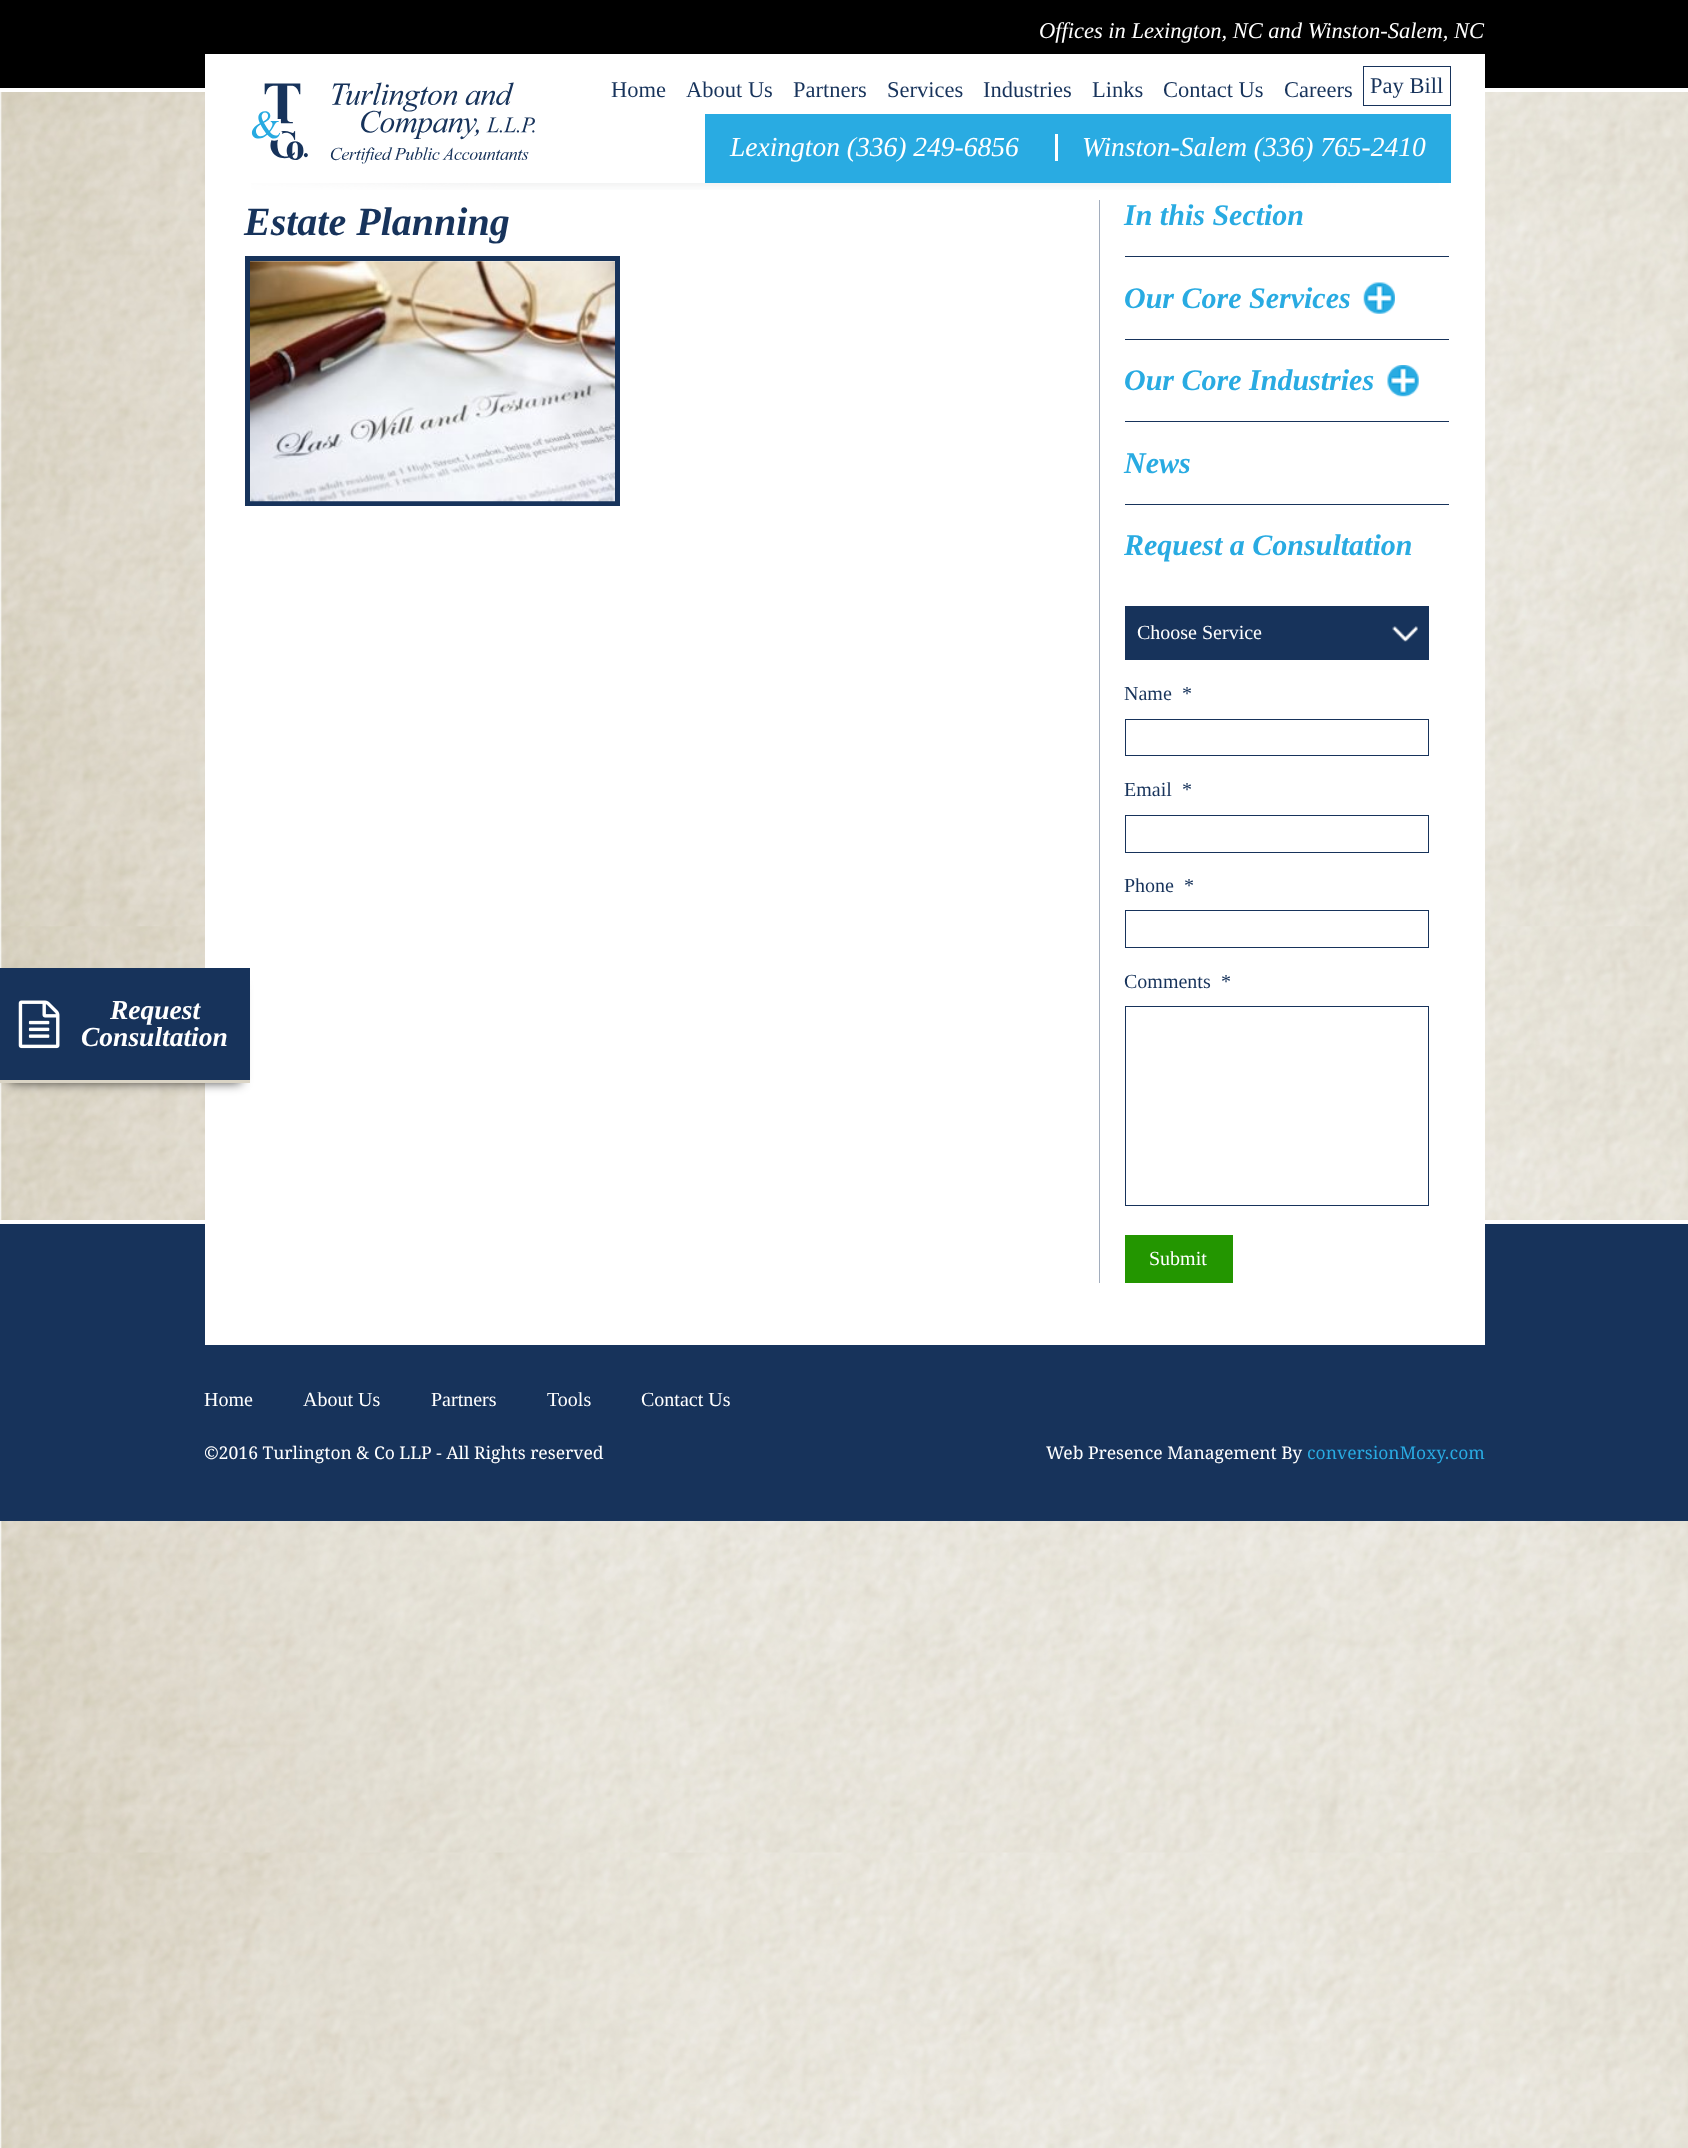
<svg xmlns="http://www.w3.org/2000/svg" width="1688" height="2148">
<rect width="100%" height="100%" fill="#fff"/>
<image x="0" y="92" width="1688" height="2056" href="media/1.png"/>
<rect width="1688" height="88" fill="#000"/>
<text x="1039" y="38" style="font-family:Liberation Serif;font-size:22.5px;font-style:italic;fill:#fff">Offices in Lexington, NC and Winston-Salem, NC</text>
<rect x="205" y="54" width="1280" height="132" fill="#fff"/>
<image x="251" y="82" width="284" height="82" href="media/2.png"/>
<text x="611" y="97" style="font-family:Liberation Serif;font-size:22.5px;fill:#17335b">Home</text>
<text x="686" y="97" style="font-family:Liberation Serif;font-size:22.5px;fill:#17335b">About Us</text>
<text x="793" y="97" style="font-family:Liberation Serif;font-size:22.5px;fill:#17335b">Partners</text>
<text x="887" y="97" style="font-family:Liberation Serif;font-size:22.5px;fill:#17335b">Services</text>
<text x="983" y="97" style="font-family:Liberation Serif;font-size:22.5px;fill:#17335b">Industries</text>
<text x="1092" y="97" style="font-family:Liberation Serif;font-size:22.5px;fill:#17335b">Links</text>
<text x="1163" y="97" style="font-family:Liberation Serif;font-size:22.5px;fill:#17335b">Contact Us</text>
<text x="1284" y="97" style="font-family:Liberation Serif;font-size:22.5px;fill:#17335b">Careers</text>
<rect x="1363.5" y="66.5" width="87" height="39" fill="none" stroke="#17335b"/>
<text x="1370" y="93" style="font-family:Liberation Serif;font-size:22.5px;fill:#17335b">Pay Bill</text>
<rect x="705" y="114" width="746" height="69" fill="#29abe2"/>
<text x="730" y="156" style="font-family:Liberation Serif;font-size:27.5px;font-style:italic;fill:#fff">Lexington (336) 249-6856</text>
<rect x="1055" y="134" width="3" height="27" fill="#fff"/>
<text x="1082" y="156" style="font-family:Liberation Serif;font-size:27.5px;font-style:italic;fill:#fff">Winston-Salem (336) 765-2410</text>
<rect y="1224" width="1688" height="297" fill="#17335b"/>
<rect y="1220" width="1688" height="4" fill="#fff"/>
<rect x="205" y="186" width="1280" height="1159" fill="#fff"/>
<image x="251" y="183" width="1188" height="7" href="media/3.png"/>
<rect x="9" y="985" width="232" height="98" fill="#000000b3" filter="blur(5.5px)"/>
<rect y="968" width="250" height="112" fill="#17335b"/>
<rect y="1080" width="250" height="3" fill="#dad4c5"/>
<image x="18" y="1000" width="42" height="49" href="media/4.png"/>
<text x="110" y="1019" style="font-family:Liberation Serif;font-size:27.5px;font-weight:bold;font-style:italic;fill:#fff">Request</text>
<text x="81" y="1046" style="font-family:Liberation Serif;font-size:27.5px;font-weight:bold;font-style:italic;fill:#fff">Consultation</text>
<text x="244" y="235" style="font-family:Liberation Serif;font-size:40px;font-weight:bold;font-style:italic;fill:#17335b">Estate Planning</text>
<rect x="247.5" y="258.5" width="370" height="245" fill="none" stroke="#17335b" stroke-width="5"/>
<image x="250" y="261" width="365" height="241" href="media/5.png"/>
<rect x="1099" y="200" width="1" height="1083" fill="#a2adbd"/>
<text x="1124" y="225" style="font-family:Liberation Serif;font-size:30px;font-weight:bold;font-style:italic;fill:#29abe2">In this Section</text>
<rect x="1125" y="256" width="324" height="1" fill="#17335b"/>
<image x="1363" y="282" width="32" height="32" href="media/6.png"/>
<text x="1124" y="308" style="font-family:Liberation Serif;font-size:30px;font-weight:bold;font-style:italic;fill:#29abe2">Our Core Services</text>
<rect x="1125" y="339" width="324" height="1" fill="#17335b"/>
<image x="1387" y="365" width="32" height="32" href="media/7.png"/>
<text x="1124" y="390" style="font-family:Liberation Serif;font-size:30px;font-weight:bold;font-style:italic;fill:#29abe2">Our Core Industries</text>
<rect x="1125" y="421" width="324" height="1" fill="#17335b"/>
<text x="1124" y="473" style="font-family:Liberation Serif;font-size:30px;font-weight:bold;font-style:italic;fill:#29abe2">News</text>
<rect x="1125" y="504" width="324" height="1" fill="#17335b"/>
<text x="1124" y="555" style="font-family:Liberation Serif;font-size:30px;font-weight:bold;font-style:italic;fill:#29abe2">Request a Consultation</text>
<rect x="1125" y="606" width="304" height="54" fill="#17335b"/>
<text x="1137" y="639" style="font-family:Liberation Serif;font-size:20px;fill:#fff">Choose Service</text>
<image x="1392" y="626" width="26" height="16" href="media/8.png"/>
<text x="1124" y="700" style="font-family:Liberation Serif;font-size:20px;fill:#17335b">Name</text>
<text x="1182" y="700" style="font-family:Liberation Serif;font-size:20px;fill:#17335b">*</text>
<rect x="1125.5" y="719.5" width="303" height="36" fill="none" stroke="#17335b"/>
<text x="1124" y="796" style="font-family:Liberation Serif;font-size:20px;fill:#17335b">Email</text>
<text x="1182" y="796" style="font-family:Liberation Serif;font-size:20px;fill:#17335b">*</text>
<rect x="1125.5" y="815.5" width="303" height="37" fill="none" stroke="#17335b"/>
<text x="1124" y="892" style="font-family:Liberation Serif;font-size:20px;fill:#17335b">Phone</text>
<text x="1184" y="892" style="font-family:Liberation Serif;font-size:20px;fill:#17335b">*</text>
<rect x="1125.5" y="910.5" width="303" height="37" fill="none" stroke="#17335b"/>
<text x="1124" y="988" style="font-family:Liberation Serif;font-size:20px;fill:#17335b">Comments</text>
<text x="1221" y="988" style="font-family:Liberation Serif;font-size:20px;fill:#17335b">*</text>
<rect x="1125.5" y="1006.5" width="303" height="199" fill="none" stroke="#17335b"/>
<rect x="1125" y="1235" width="108" height="48" fill="#239600"/>
<text x="1149" y="1265" style="font-family:Liberation Serif;font-size:20px;fill:#fff">Submit</text>
<text x="204" y="1406" style="font-family:Liberation Serif;font-size:20px;fill:#fff">Home</text>
<text x="303" y="1406" style="font-family:Liberation Serif;font-size:20px;fill:#fff">About Us</text>
<text x="431" y="1406" style="font-family:Liberation Serif;font-size:20px;fill:#fff">Partners</text>
<text x="547" y="1406" style="font-family:Liberation Serif;font-size:20px;fill:#fff">Tools</text>
<text x="641" y="1406" style="font-family:Liberation Serif;font-size:20px;fill:#fff">Contact Us</text>
<text x="204" y="1459" style="font-family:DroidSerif;font-size:17.5px;fill:#fff">©2016 Turlington &amp; Co LLP - All Rights reserved</text>
<text x="1046" y="1459" style="font-family:DroidSerif;font-size:17.5px;fill:#fff">Web Presence Management By</text>
<text x="1307" y="1459" style="font-family:DroidSerif;font-size:17.5px;fill:#29abe2">conversionMoxy.com</text>
</svg>
